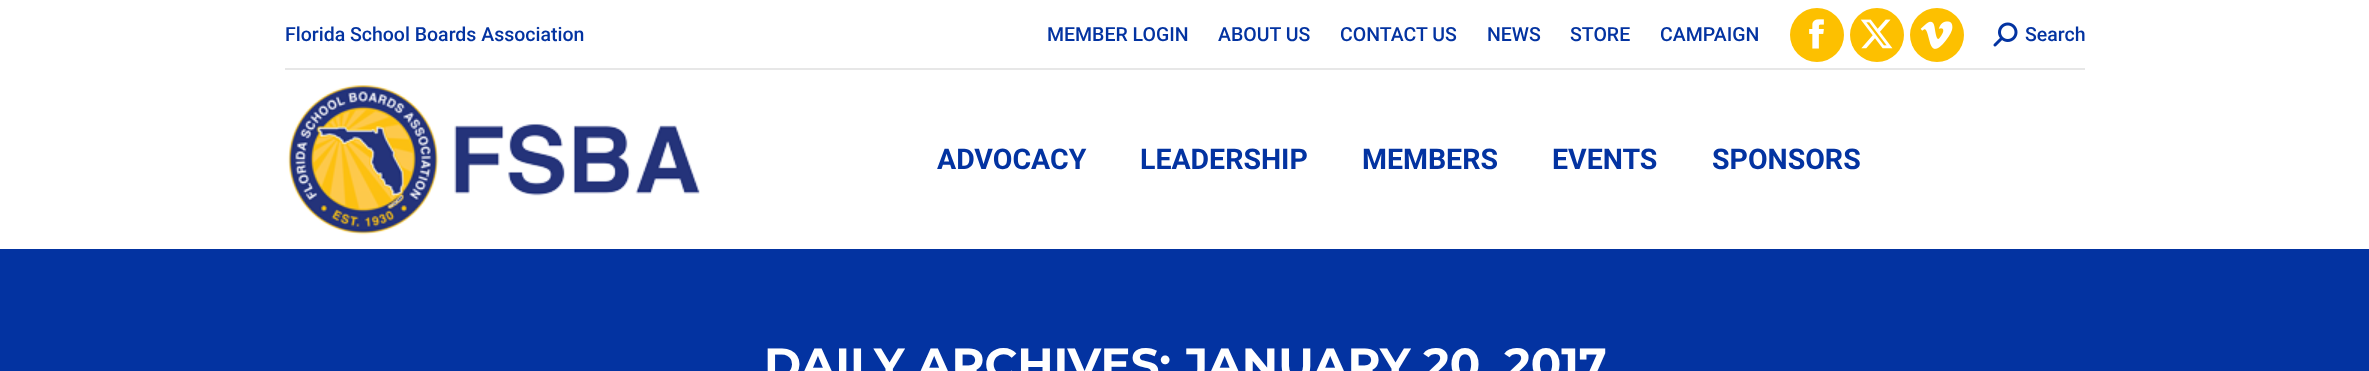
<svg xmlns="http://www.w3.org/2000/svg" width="2369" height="371">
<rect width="100%" height="100%" fill="#fff"/>
<text x="285" y="41" style="font-family:Roboto;font-size:19.5px;font-weight:500;fill:#0333a1">Florida School Boards Association</text>
<text x="1047" y="41" style="font-family:Roboto;font-size:19.5px;font-weight:500;fill:#0333a1">MEMBER LOGIN</text>
<text x="1218" y="41" style="font-family:Roboto;font-size:19.5px;font-weight:500;fill:#0333a1">ABOUT US</text>
<text x="1340" y="41" style="font-family:Roboto;font-size:19.5px;font-weight:500;fill:#0333a1">CONTACT US</text>
<text x="1487" y="41" style="font-family:Roboto;font-size:19.5px;font-weight:500;fill:#0333a1">NEWS</text>
<text x="1570" y="41" style="font-family:Roboto;font-size:19.5px;font-weight:500;fill:#0333a1">STORE</text>
<text x="1660" y="41" style="font-family:Roboto;font-size:19.5px;font-weight:500;fill:#0333a1">CAMPAIGN</text>
<circle cx="1817" cy="35" r="27" fill="#fdc000"/>
<image x="1809" y="19" width="15" height="30" href="media/1.png"/>
<circle cx="1877" cy="35" r="27" fill="#fdc000"/>
<image x="1860" y="19" width="33" height="30" href="media/2.png"/>
<circle cx="1937" cy="35" r="27" fill="#fdc000"/>
<image x="1920" y="21" width="33" height="28" href="media/3.png"/>
<image x="1993" y="22" width="25" height="25" href="media/4.png"/>
<text x="2025" y="41" style="font-family:Roboto;font-size:19.5px;font-weight:500;fill:#0333a1">Search</text>
<rect x="285" y="68" width="1800" height="2" fill="#e7e7e7"/>
<image x="287" y="85" width="413" height="150" href="media/5.png"/>
<text x="937" y="169" style="font-family:Roboto;font-size:28.5px;font-weight:bold;fill:#0333a1">ADVOCACY</text>
<text x="1140" y="169" style="font-family:Roboto;font-size:28.5px;font-weight:bold;fill:#0333a1">LEADERSHIP</text>
<text x="1362" y="169" style="font-family:Roboto;font-size:28.5px;font-weight:bold;fill:#0333a1">MEMBERS</text>
<text x="1552" y="169" style="font-family:Roboto;font-size:28.5px;font-weight:bold;fill:#0333a1">EVENTS</text>
<text x="1712" y="169" style="font-family:Roboto;font-size:28.5px;font-weight:bold;fill:#0333a1">SPONSORS</text>
<rect y="249" width="2369" height="122" fill="#0333a1"/>
<text x="764" y="380" style="font-family:Montserrat;font-size:45px;font-weight:bold;fill:#fff">DAILY ARCHIVES: JANUARY 20, 2017</text>
</svg>
